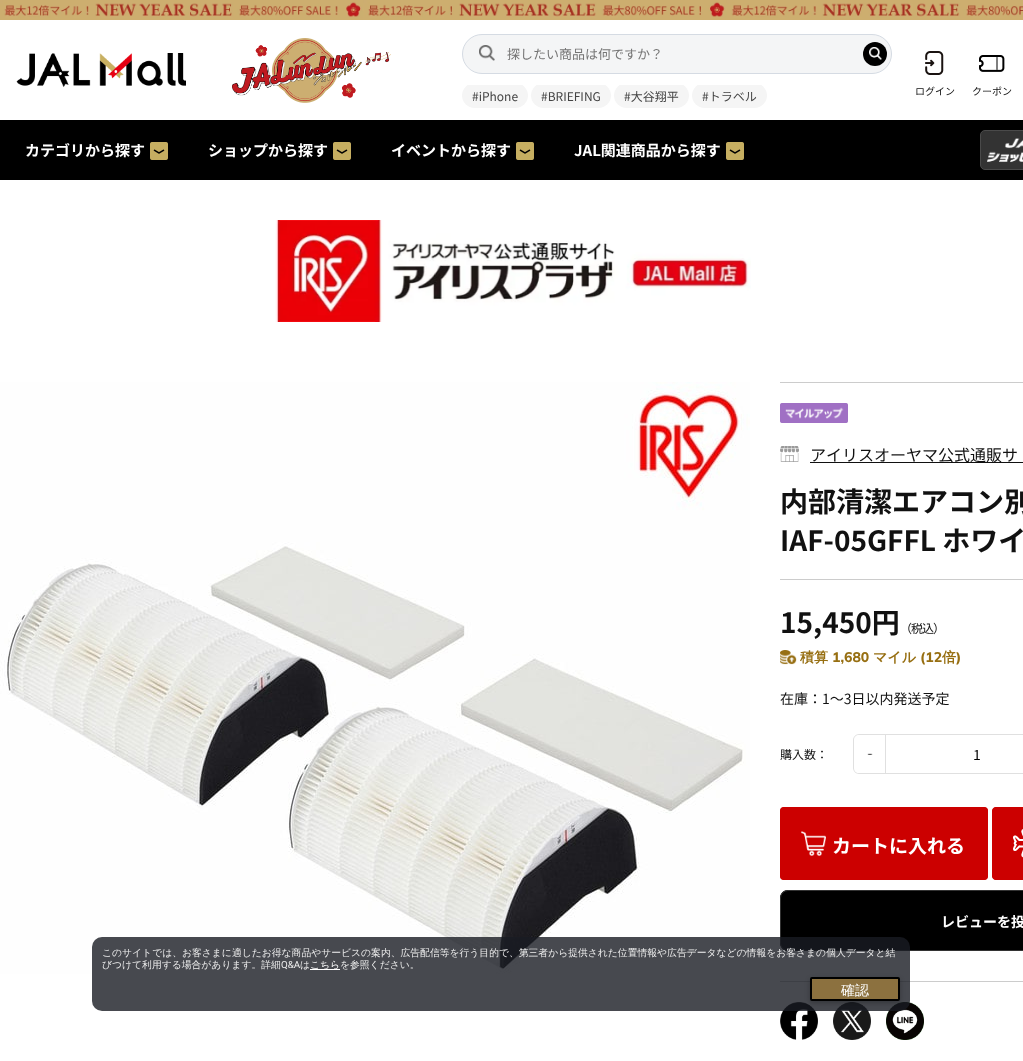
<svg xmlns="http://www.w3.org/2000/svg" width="1023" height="1061">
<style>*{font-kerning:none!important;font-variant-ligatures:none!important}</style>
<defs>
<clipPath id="clip1"><rect x="462" y="85" width="430" height="27"/></clipPath>
</defs>
<rect width="100%" height="100%" fill="#fff"/>
<image x="0" y="0" width="1023" height="20" href="media/1.png"/>
<image x="16" y="53" width="170" height="34" href="media/2.png"/>
<image x="232" y="38" width="159" height="65" href="media/3.png"/>
<rect x="462.5" y="34.5" width="429" height="39" rx="19.5" fill="#f4f5f6" stroke="#d5dbe3"/>
<image x="479" y="45" width="16" height="16" href="media/4.png"/>
<text x="507" y="59" style="font-family:Noto Sans CJK JP;font-size:13px;fill:#757575">探したい商品は何ですか？</text>
<circle cx="875" cy="54" r="12" fill="#000"/>
<image x="869" y="47" width="13" height="13" href="media/5.png"/>
<g clip-path="url(#clip1)">
<rect x="462" y="83" width="66" height="25" rx="12.5" fill="#f5f5f5"/>
</g>
<text x="472" y="101" style="font-family:Noto Sans CJK JP;font-size:12px;fill:#444">#iPhone</text>
<g clip-path="url(#clip1)">
<rect x="531" y="83" width="80" height="25" rx="12.5" fill="#f5f5f5"/>
</g>
<text x="541" y="101" style="font-family:Noto Sans CJK JP;font-size:12px;fill:#444">#BRIEFING</text>
<g clip-path="url(#clip1)">
<rect x="614" y="83" width="75" height="25" rx="12.5" fill="#f5f5f5"/>
</g>
<text x="624" y="101" style="font-family:Noto Sans CJK JP;font-size:12px;fill:#444">#大谷翔平</text>
<g clip-path="url(#clip1)">
<rect x="692" y="83" width="75" height="25" rx="12.5" fill="#f5f5f5"/>
</g>
<text x="702" y="101" style="font-family:Noto Sans CJK JP;font-size:12px;fill:#444">#トラベル</text>
<image x="925" y="51" width="19" height="24" href="media/6.png"/>
<text x="915" y="95" style="font-family:Noto Sans CJK JP;font-size:10px;fill:#111">ログイン</text>
<image x="979" y="55" width="26" height="17" href="media/7.png"/>
<text x="972" y="95" style="font-family:Noto Sans CJK JP;font-size:10px;fill:#111">クーポン</text>
<rect y="120" width="1023" height="60" fill="#000"/>
<text x="25" y="156" style="font-family:Noto Sans CJK JP;font-size:15px;font-weight:bold;fill:#fff">カテゴリから探す</text>
<image x="150" y="142" width="18" height="18" href="media/8.png"/>
<text x="208" y="156" style="font-family:Noto Sans CJK JP;font-size:15px;font-weight:bold;fill:#fff">ショップから探す</text>
<image x="333" y="142" width="18" height="18" href="media/8.png"/>
<text x="391" y="156" style="font-family:Noto Sans CJK JP;font-size:15px;font-weight:bold;fill:#fff">イベントから探す</text>
<image x="516" y="142" width="18" height="18" href="media/8.png"/>
<text x="574" y="156" style="font-family:Noto Sans CJK JP;font-size:15px;font-weight:bold;fill:#fff">JAL関連商品から探す</text>
<image x="726" y="142" width="18" height="18" href="media/8.png"/>
<rect x="980.5" y="130.5" width="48" height="39" rx="4.5" fill="#333" stroke="#4a4a4a"/>
<image x="987" y="138" width="36" height="25" href="media/9.png"/>
<image x="275" y="220" width="476" height="102" href="media/10.png"/>
<image x="0" y="382" width="750" height="592" href="media/11.png"/>
<rect x="780" y="382" width="243" height="1" fill="#ccc"/>
<image x="780" y="403" width="68" height="20" href="media/12.png"/>
<image x="780" y="446" width="19" height="16" href="media/13.png"/>
<rect x="810" y="462" width="213" height="1" fill="#111"/>
<text x="810" y="461" style="font-family:Noto Sans CJK JP;font-size:16px;fill:#111">アイリスオーヤマ公式通販サ</text>
<text x="780" y="512" style="font-family:Noto Sans CJK JP;font-size:28px;font-weight:bold;fill:#111">内部清潔エアコン別</text>
<text x="780" y="551" style="font-family:Noto Sans CJK JP;font-size:28px;font-weight:bold;fill:#111">IAF-05GFFL ホワイ</text>
<rect x="780" y="579" width="243" height="1" fill="#ccc"/>
<text x="780" y="633" style="font-family:Noto Sans CJK JP;font-size:28px;font-weight:bold;fill:#111">15,450円</text>
<text x="900" y="633" style="font-family:Noto Sans CJK JP;font-size:12px;letter-spacing:-1px;fill:#111">（税込）</text>
<image x="780" y="650" width="17" height="15" href="media/14.png"/>
<text x="800" y="662" style="font-family:WenQuanYi Zen Hei;font-size:14px;font-weight:bold;fill:#976f12">積算</text>
<text x="832" y="662" style="font-family:Mulish;font-size:14px;font-weight:800;fill:#976f12">1,680</text>
<text x="873" y="662" style="font-family:WenQuanYi Zen Hei;font-size:14px;font-weight:bold;fill:#976f12">マイル</text>
<text x="920" y="662" style="font-family:Mulish;font-size:14px;font-weight:800;fill:#976f12">(12</text>
<text x="942" y="662" style="font-family:WenQuanYi Zen Hei;font-size:14px;font-weight:bold;fill:#976f12">倍</text>
<text x="956" y="662" style="font-family:Mulish;font-size:14px;font-weight:800;fill:#976f12">)</text>
<text x="780" y="704" style="font-family:Noto Sans CJK JP;font-size:14px;fill:#111">在庫：1～3日以内発送予定</text>
<text x="780" y="759" style="font-family:Noto Sans CJK JP;font-size:12px;fill:#111">購入数：</text>
<path d="M859 734h26v40h-26c-3 0-6-3-6-6v-28c0-3 3-6 6-6zm0 1h26v38h-26c-3 0-5-2-5-5v-28c0-3 2-5 5-5z" fill="#e0e0e0" fill-rule="evenodd"/>
<image x="867" y="753" width="6" height="2" href="media/15.png"/>
<rect x="885.5" y="734.5" width="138" height="39" fill="none" stroke="#e0e0e0"/>
<text x="973" y="760" style="font-family:Noto Sans CJK JP;font-size:14px;fill:#000">1</text>
<rect x="780" y="807" width="208" height="73" rx="4" fill="#c00"/>
<image x="801" y="831" width="25" height="25" href="media/16.png"/>
<rect x="780.5" y="807.5" width="207" height="72" rx="3.5" fill="none" stroke="#c00"/>
<text x="832" y="853" style="font-family:Noto Sans CJK JP;font-size:19px;font-weight:bold;fill:#fff">カートに入れる</text>
<path d="M996 807h27v73h-27c-2 0-4-2-4-4v-65c0-2 2-4 4-4z" fill="#c00"/>
<image x="1013" y="829" width="10" height="29" href="media/17.png"/>
<rect x="992.5" y="807.5" width="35" height="72" rx="3.5" fill="none" stroke="#c00"/>
<path d="M788 890h235v61h-235c-4.5 0-8-3.5-8-8v-45c0-4.5 3.5-8 8-8z" fill="#000"/>
<rect x="780.5" y="890.5" width="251" height="60" rx="7.5" fill="none" stroke="#333"/>
<text x="941" y="927" style="font-family:Noto Sans CJK JP;font-size:14px;font-weight:bold;fill:#fff">レビューを投</text>
<rect x="780" y="981" width="243" height="1" fill="#ccc"/>
<image x="780" y="1002" width="38" height="38" href="media/18.png"/>
<image x="833" y="1002" width="38" height="38" href="media/19.png"/>
<image x="886" y="1002" width="38" height="38" href="media/20.png"/>
<rect x="92" y="937" width="818" height="74" rx="10" fill="#191b23cc"/>
<text x="102" y="956" style="font-family:WenQuanYi Zen Hei;font-size:9.8px;font-weight:500;fill:#ededed">このサイトでは、お客さまに適したお得な商品やサービスの案内、広告配信等を行う目的で、第三者から提供された位置情報や広告データなどの情報をお客さまの個人データと結</text>
<text x="102" y="968" style="font-family:WenQuanYi Zen Hei;font-size:9.8px;font-weight:500;fill:#ededed">びつけて利用する場合があります。詳細</text>
<text x="281" y="968" style="font-family:Roboto;font-size:9.8px;fill:#ededed">Q&amp;A</text>
<text x="300" y="968" style="font-family:WenQuanYi Zen Hei;font-size:9.8px;font-weight:500;fill:#ededed">は</text>
<rect x="310" y="969" width="30" height="1" fill="#fff"/>
<text x="310" y="968" style="font-family:WenQuanYi Zen Hei;font-size:9.8px;font-weight:500;fill:#fff">こちら</text>
<text x="340" y="968" style="font-family:WenQuanYi Zen Hei;font-size:9.8px;font-weight:500;fill:#ededed">を参照ください。</text>
<rect x="810" y="979" width="90" height="24" rx="2" fill="#00000042" filter="blur(2.5px)"/>
<rect x="811" y="978" width="88" height="22" rx="1" fill="#8c713f" stroke="#000" stroke-width="2"/>
<text x="841" y="995" style="font-family:WenQuanYi Zen Hei;font-size:14px;font-weight:500;fill:#fff">確認</text>
</svg>
